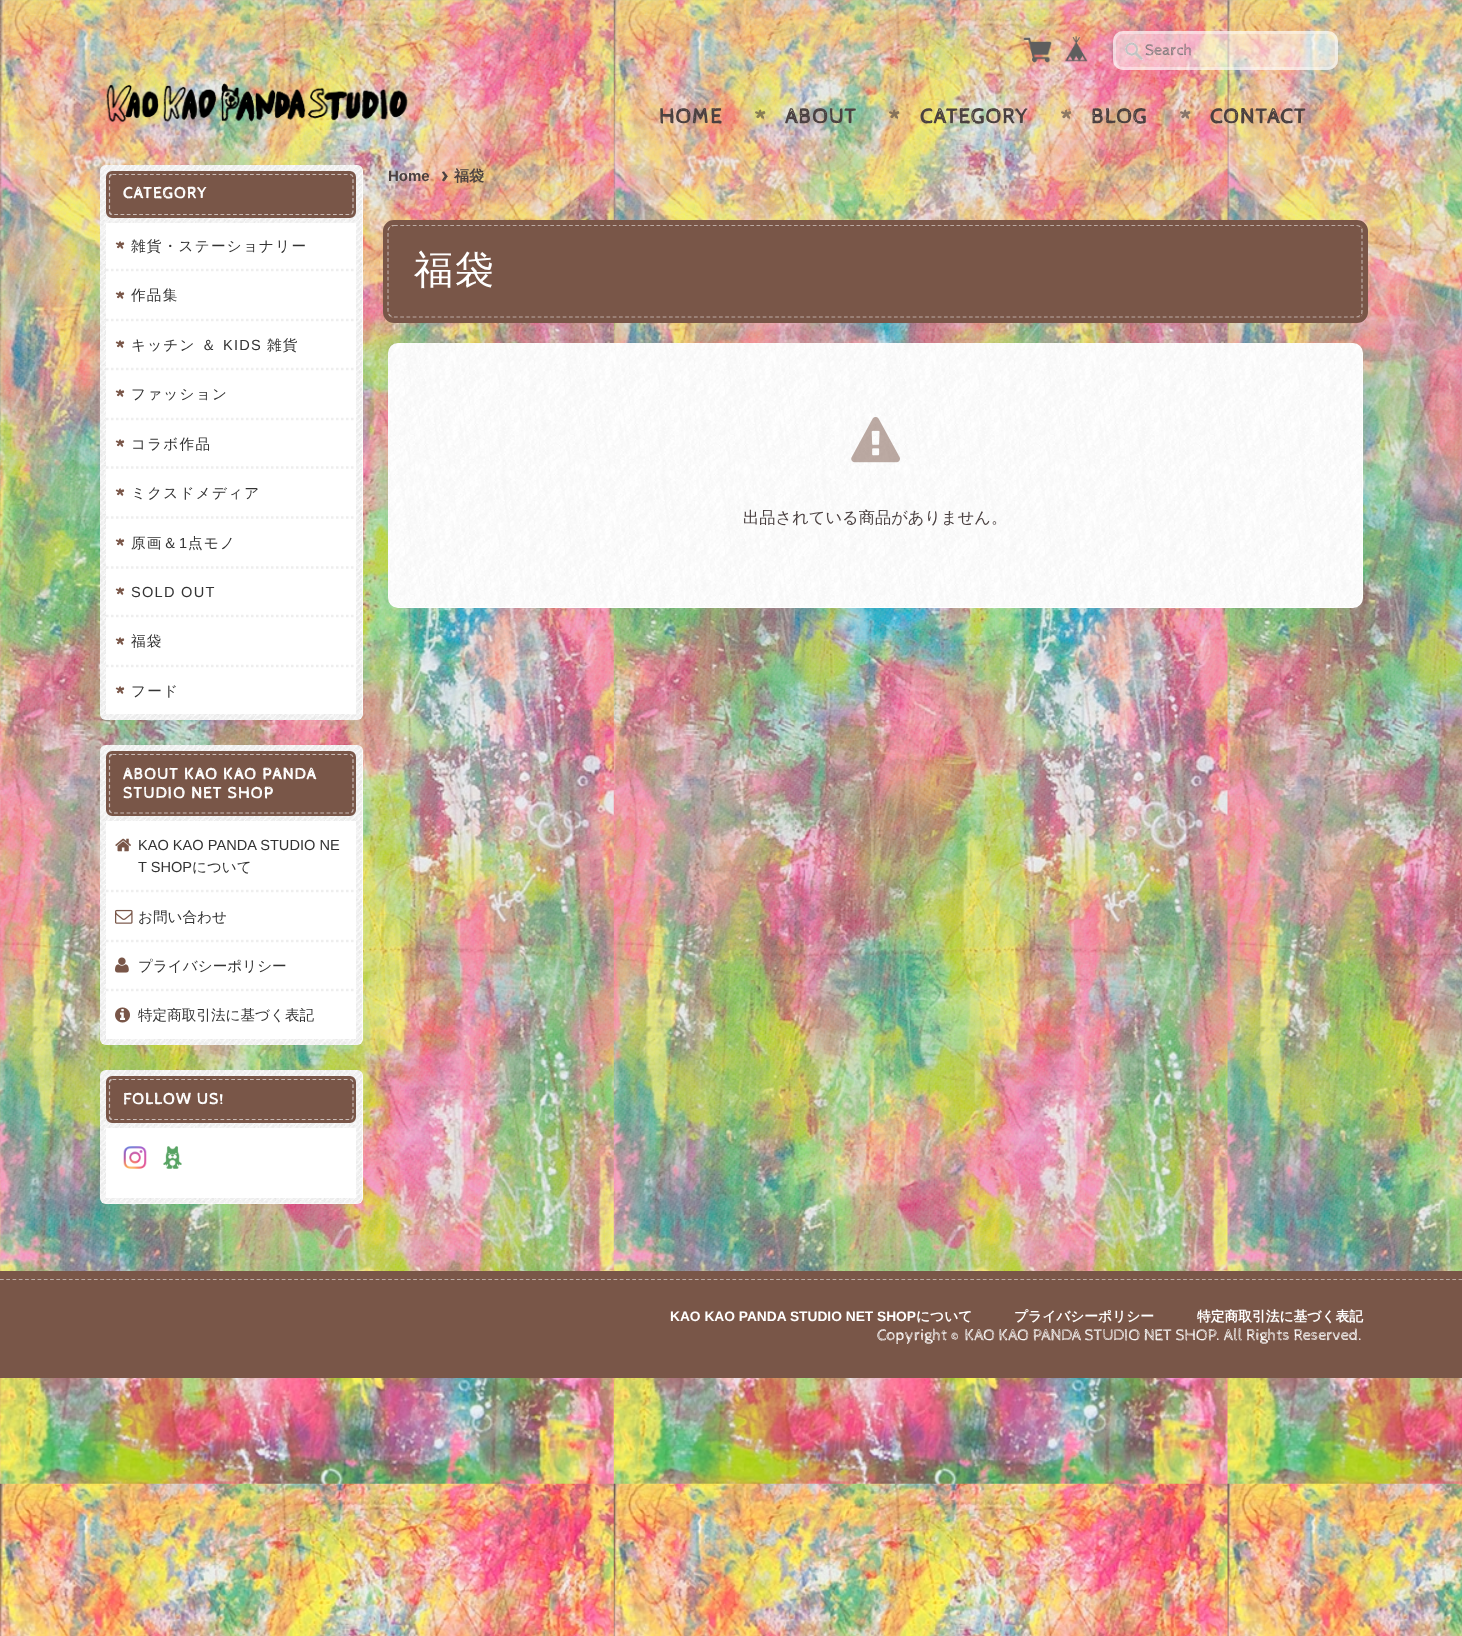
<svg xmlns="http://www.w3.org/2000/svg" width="1462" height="1636">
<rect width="100%" height="100%" fill="#fff"/>
<image x="0" y="0" width="1462" height="1636" href="media/1.png"/>
<image x="0" y="0" width="1462" height="1271" href="media/2.png"/>
<image x="106" y="83" width="302" height="39" href="media/3.png"/>
<image x="1023" y="37" width="29" height="26" href="media/4.png"/>
<image x="1064" y="36" width="24" height="26" href="media/5.png"/>
<rect x="1113" y="31" width="225" height="39" rx="10" fill="#ffffff80"/>
<image x="1125" y="42" width="18" height="18" href="media/6.png"/>
<rect x="1114.5" y="32.5" width="222" height="36" rx="8.5" fill="none" stroke="#ffffff66" stroke-width="3"/>
<text x="1145" y="55" style="font-family:Cabin Sketch;font-size:16.25px;fill:#757575">Search</text>
<text x="659" y="123" style="font-family:Cabin Sketch;font-size:21.5px;font-weight:bold;letter-spacing:1.25px;fill:#4a4040">HOME</text>
<text x="754" y="129" style="font-family:Cabin Sketch;font-size:32px;font-weight:bold;letter-spacing:1.25px;fill:#877d55">*</text>
<text x="785" y="123" style="font-family:Cabin Sketch;font-size:21.5px;font-weight:bold;letter-spacing:1.25px;fill:#4a4040">ABOUT</text>
<text x="888" y="129" style="font-family:Cabin Sketch;font-size:32px;font-weight:bold;letter-spacing:1.25px;fill:#86725a">*</text>
<text x="920" y="123" style="font-family:Cabin Sketch;font-size:21.5px;font-weight:bold;letter-spacing:1.25px;fill:#4a4040">CATEGORY</text>
<text x="1060" y="129" style="font-family:Cabin Sketch;font-size:32px;font-weight:bold;letter-spacing:1.25px;fill:#8d7864">*</text>
<text x="1091" y="123" style="font-family:Cabin Sketch;font-size:21.5px;font-weight:bold;letter-spacing:1.25px;fill:#4a4040">BLOG</text>
<text x="1179" y="129" style="font-family:Cabin Sketch;font-size:32px;font-weight:bold;letter-spacing:1.25px;fill:#88756a">*</text>
<text x="1210" y="123" style="font-family:Cabin Sketch;font-size:21.5px;font-weight:bold;letter-spacing:1.25px;fill:#4a4040">CONTACT</text>
<rect x="100" y="165" width="263" height="555" rx="6" fill="#fff"/>
<image x="100" y="165" width="263" height="555" href="media/7.png"/>
<rect x="107.5" y="172.5" width="247" height="44" rx="4.5" fill="none" stroke="#795648" stroke-width="3"/>
<rect x="109" y="174" width="245" height="41" rx="4" fill="#795648"/>
<path d="M112.5 174.5h237.5c1.5 0 3 1.5 3 3v33.5c0 2-1.5 3.5-3 3.5h-237.5c-1.5 0-3-1.5-3-3.5v-33.5c0-1.5 1.5-3 3-3z" fill="none" stroke="#ffffff9c" stroke-width="1.2" stroke-dasharray="3.75 2.5"/>
<text x="123" y="198" style="font-family:Cabin Sketch;font-size:16.25px;font-weight:bold;letter-spacing:1.25px;fill:#fff">CATEGORY</text>
<rect x="106" y="223" width="250" height="491" fill="#fff"/>
<text x="115" y="257" style="font-family:Cabin Sketch;font-size:26px;font-weight:bold;letter-spacing:1.25px;fill:#795648">*</text>
<text x="131" y="251" style="font-family:WenQuanYi Zen Hei;font-size:14.6px;font-weight:500;letter-spacing:1.25px;fill:#333">雑貨・ステーショナリー</text>
<path d="M106 270h250" fill="none" stroke="#eee" stroke-width="2.5" stroke-dasharray="2.5 2.5"/>
<text x="115" y="307" style="font-family:Cabin Sketch;font-size:26px;font-weight:bold;letter-spacing:1.25px;fill:#795648">*</text>
<text x="131" y="300" style="font-family:WenQuanYi Zen Hei;font-size:14.6px;font-weight:500;letter-spacing:1.25px;fill:#333">作品集</text>
<path d="M106 320h250" fill="none" stroke="#eee" stroke-width="2.5" stroke-dasharray="2.5 2.5"/>
<text x="115" y="356" style="font-family:Cabin Sketch;font-size:26px;font-weight:bold;letter-spacing:1.25px;fill:#795648">*</text>
<text x="131" y="350" style="font-family:WenQuanYi Zen Hei;font-size:14.6px;font-weight:500;letter-spacing:1.25px;fill:#333">キッチン ＆</text>
<text x="223" y="350" style="font-family:Liberation Sans;font-size:14.6px;letter-spacing:1.25px;fill:#333">KIDS</text>
<text x="267" y="350" style="font-family:WenQuanYi Zen Hei;font-size:14.6px;font-weight:500;letter-spacing:1.25px;fill:#333">雑貨</text>
<path d="M106 369h250" fill="none" stroke="#eee" stroke-width="2.5" stroke-dasharray="2.5 2.5"/>
<text x="115" y="405" style="font-family:Cabin Sketch;font-size:26px;font-weight:bold;letter-spacing:1.25px;fill:#795648">*</text>
<text x="131" y="399" style="font-family:WenQuanYi Zen Hei;font-size:14.6px;font-weight:500;letter-spacing:1.25px;fill:#333">ファッション</text>
<path d="M106 419h250" fill="none" stroke="#eee" stroke-width="2.5" stroke-dasharray="2.5 2.5"/>
<text x="115" y="455" style="font-family:Cabin Sketch;font-size:26px;font-weight:bold;letter-spacing:1.25px;fill:#795648">*</text>
<text x="131" y="449" style="font-family:WenQuanYi Zen Hei;font-size:14.6px;font-weight:500;letter-spacing:1.25px;fill:#333">コラボ作品</text>
<path d="M106 467.5h250" fill="none" stroke="#eee" stroke-width="2.5" stroke-dasharray="2.5 2.5"/>
<text x="115" y="504" style="font-family:Cabin Sketch;font-size:26px;font-weight:bold;letter-spacing:1.25px;fill:#795648">*</text>
<text x="131" y="498" style="font-family:WenQuanYi Zen Hei;font-size:14.6px;font-weight:500;letter-spacing:1.25px;fill:#333">ミクスドメディア</text>
<path d="M106 517.5h250" fill="none" stroke="#eee" stroke-width="2.5" stroke-dasharray="2.5 2.5"/>
<text x="115" y="554" style="font-family:Cabin Sketch;font-size:26px;font-weight:bold;letter-spacing:1.25px;fill:#795648">*</text>
<text x="131" y="548" style="font-family:WenQuanYi Zen Hei;font-size:14.6px;font-weight:500;letter-spacing:1.25px;fill:#333">原画＆</text>
<text x="179" y="548" style="font-family:Liberation Sans;font-size:14.6px;letter-spacing:1.25px;fill:#333">1</text>
<text x="188" y="548" style="font-family:WenQuanYi Zen Hei;font-size:14.6px;font-weight:500;letter-spacing:1.25px;fill:#333">点モノ</text>
<path d="M106 567.5h250" fill="none" stroke="#eee" stroke-width="2.5" stroke-dasharray="2.5 2.5"/>
<text x="115" y="603" style="font-family:Cabin Sketch;font-size:26px;font-weight:bold;letter-spacing:1.25px;fill:#795648">*</text>
<text x="131" y="597" style="font-family:Liberation Sans;font-size:14.6px;letter-spacing:1.25px;fill:#333">SOLD OUT</text>
<path d="M106 616h250" fill="none" stroke="#eee" stroke-width="2.5" stroke-dasharray="2.5 2.5"/>
<text x="115" y="653" style="font-family:Cabin Sketch;font-size:26px;font-weight:bold;letter-spacing:1.25px;fill:#795648">*</text>
<text x="131" y="646" style="font-family:WenQuanYi Zen Hei;font-size:14.6px;font-weight:500;letter-spacing:1.25px;fill:#333">福袋</text>
<path d="M106 666h250" fill="none" stroke="#eee" stroke-width="2.5" stroke-dasharray="2.5 2.5"/>
<text x="115" y="702" style="font-family:Cabin Sketch;font-size:26px;font-weight:bold;letter-spacing:1.25px;fill:#795648">*</text>
<text x="131" y="696" style="font-family:WenQuanYi Zen Hei;font-size:14.6px;font-weight:500;letter-spacing:1.25px;fill:#333">フード</text>
<rect x="100" y="745" width="263" height="300" rx="6" fill="#fff"/>
<image x="100" y="745" width="263" height="300" href="media/8.png"/>
<rect x="107.5" y="752.5" width="247" height="62" rx="4.5" fill="none" stroke="#795648" stroke-width="3"/>
<rect x="109" y="754" width="245" height="60" rx="4" fill="#795648"/>
<path d="M112.5 754.5h237.5c1.5 0 3 1.5 3 3v52.5c0 1.5-1.5 3-3 3h-237.5c-1.5 0-3-1.5-3-3v-52.5c0-1.5 1.5-3 3-3z" fill="none" stroke="#ffffff9c" stroke-width="1.2" stroke-dasharray="3.75 2.5"/>
<text x="123" y="779" style="font-family:Cabin Sketch;font-size:16.25px;font-weight:bold;letter-spacing:1.25px;fill:#fff">ABOUT KAO KAO PANDA</text>
<text x="123" y="798" style="font-family:Cabin Sketch;font-size:16.25px;font-weight:bold;letter-spacing:1.25px;fill:#fff">STUDIO NET SHOP</text>
<rect x="106" y="821" width="250" height="218" fill="#fff"/>
<image x="115" y="838" width="16" height="14" href="media/9.png"/>
<text x="138" y="850" style="font-family:Liberation Sans;font-size:14.6px;fill:#333">KAO KAO PANDA STUDIO NE</text>
<text x="138" y="872" style="font-family:Liberation Sans;font-size:14.6px;fill:#333">T SHOP</text>
<text x="192" y="872" style="font-family:WenQuanYi Zen Hei;font-size:14.6px;font-weight:500;fill:#333">について</text>
<path d="M106 891h250" fill="none" stroke="#eee" stroke-width="2.5" stroke-dasharray="2.5 2.5"/>
<image x="115" y="909" width="18" height="15" href="media/10.png"/>
<text x="138" y="922" style="font-family:WenQuanYi Zen Hei;font-size:14.6px;font-weight:500;fill:#333">お問い合わせ</text>
<path d="M106 941h250" fill="none" stroke="#eee" stroke-width="2.5" stroke-dasharray="2.5 2.5"/>
<image x="115" y="957" width="14" height="16" href="media/11.png"/>
<text x="138" y="971" style="font-family:WenQuanYi Zen Hei;font-size:14.6px;font-weight:500;fill:#333">プライバシーポリシー</text>
<path d="M106 990h250" fill="none" stroke="#eee" stroke-width="2.5" stroke-dasharray="2.5 2.5"/>
<image x="115" y="1007" width="15" height="16" href="media/12.png"/>
<text x="138" y="1020" style="font-family:WenQuanYi Zen Hei;font-size:14.6px;font-weight:500;fill:#333">特定商取引法に基づく表記</text>
<rect x="100" y="1070" width="263" height="134" rx="6" fill="#fff"/>
<image x="100" y="1070" width="263" height="134" href="media/13.png"/>
<rect x="107.5" y="1077.5" width="247" height="44" rx="4.5" fill="none" stroke="#795648" stroke-width="3"/>
<rect x="109" y="1079" width="245" height="41" rx="4" fill="#795648"/>
<path d="M112.5 1079.5h237.5c1.5 0 3 1.5 3 3v33.5c0 2-1.5 3.5-3 3.5h-237.5c-1.5 0-3-1.5-3-3.5v-33.5c0-1.5 1.5-3 3-3z" fill="none" stroke="#ffffff9c" stroke-width="1.2" stroke-dasharray="3.75 2.5"/>
<text x="123" y="1104" style="font-family:Cabin Sketch;font-size:16.25px;font-weight:bold;letter-spacing:1.25px;fill:#fff">FOLLOW US!</text>
<rect x="106" y="1128" width="250" height="70" fill="#fff"/>
<image x="123" y="1146" width="24" height="23" href="media/14.png"/>
<image x="163" y="1146" width="19" height="23" href="media/15.png"/>
<text x="388" y="181" style="font-family:Liberation Sans;font-size:15px;font-weight:bold;fill:#4a4040">Home</text>
<text x="441" y="182" style="font-family:Cabin Sketch;font-size:22px;font-weight:bold;fill:#4a4040">&gt;</text>
<text x="454" y="181" style="font-family:WenQuanYi Zen Hei;font-size:15px;font-weight:bold;fill:#4a4040">福袋</text>
<rect x="385.5" y="222.5" width="980" height="98" rx="8.5" fill="none" stroke="#795648" stroke-width="5"/>
<rect x="388" y="225" width="975" height="93" rx="6" fill="#795648"/>
<path d="M394 225.5h962c3.5 0 6 2.5 6 5.5v80c0 3.5-2.5 6-6 6h-962c-3.5 0-6-2.5-6-6v-80c0-3 2.5-5.5 6-5.5z" fill="none" stroke="#ffffff80" stroke-width="1.2" stroke-dasharray="3.75 2.5"/>
<text x="414" y="283" style="font-family:WenQuanYi Zen Hei;font-size:39px;font-weight:500;letter-spacing:2px;fill:#fff">福袋</text>
<rect x="388" y="343" width="975" height="265" rx="10" fill="#fff"/>
<image x="388" y="343" width="974" height="264" href="media/16.png"/>
<image x="851" y="417" width="49" height="46" href="media/17.png"/>
<text x="743" y="523" style="font-family:WenQuanYi Zen Hei;font-size:16.25px;font-weight:500;fill:#4a4040">出品されている商品がありません。</text>
<rect x="-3" y="1275" width="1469" height="99" fill="none" stroke="#795648" stroke-width="8"/>
<rect x="1" y="1279" width="1461" height="91" fill="#795648"/>
<path d="M0 1279.5h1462.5" fill="none" stroke="#bcaba4" stroke-width="1.2" stroke-dasharray="3.75 2.51"/>
<text x="670" y="1321" style="font-family:Liberation Sans;font-size:13.75px;font-weight:bold;fill:#fff">KAO KAO PANDA STUDIO NET SHOP</text>
<text x="916" y="1321" style="font-family:WenQuanYi Zen Hei;font-size:13.75px;font-weight:bold;fill:#fff">について</text>
<text x="1014" y="1321" style="font-family:WenQuanYi Zen Hei;font-size:13.75px;font-weight:bold;fill:#fff">プライバシーポリシー</text>
<text x="1197" y="1321" style="font-family:WenQuanYi Zen Hei;font-size:13.75px;font-weight:bold;fill:#fff">特定商取引法に基づく表記</text>
<text x="877" y="1340" style="font-family:Cabin Sketch;font-size:16.25px;fill:#fff">Copyright © KAO KAO PANDA STUDIO NET SHOP. All Rights Reserved.</text>
</svg>
